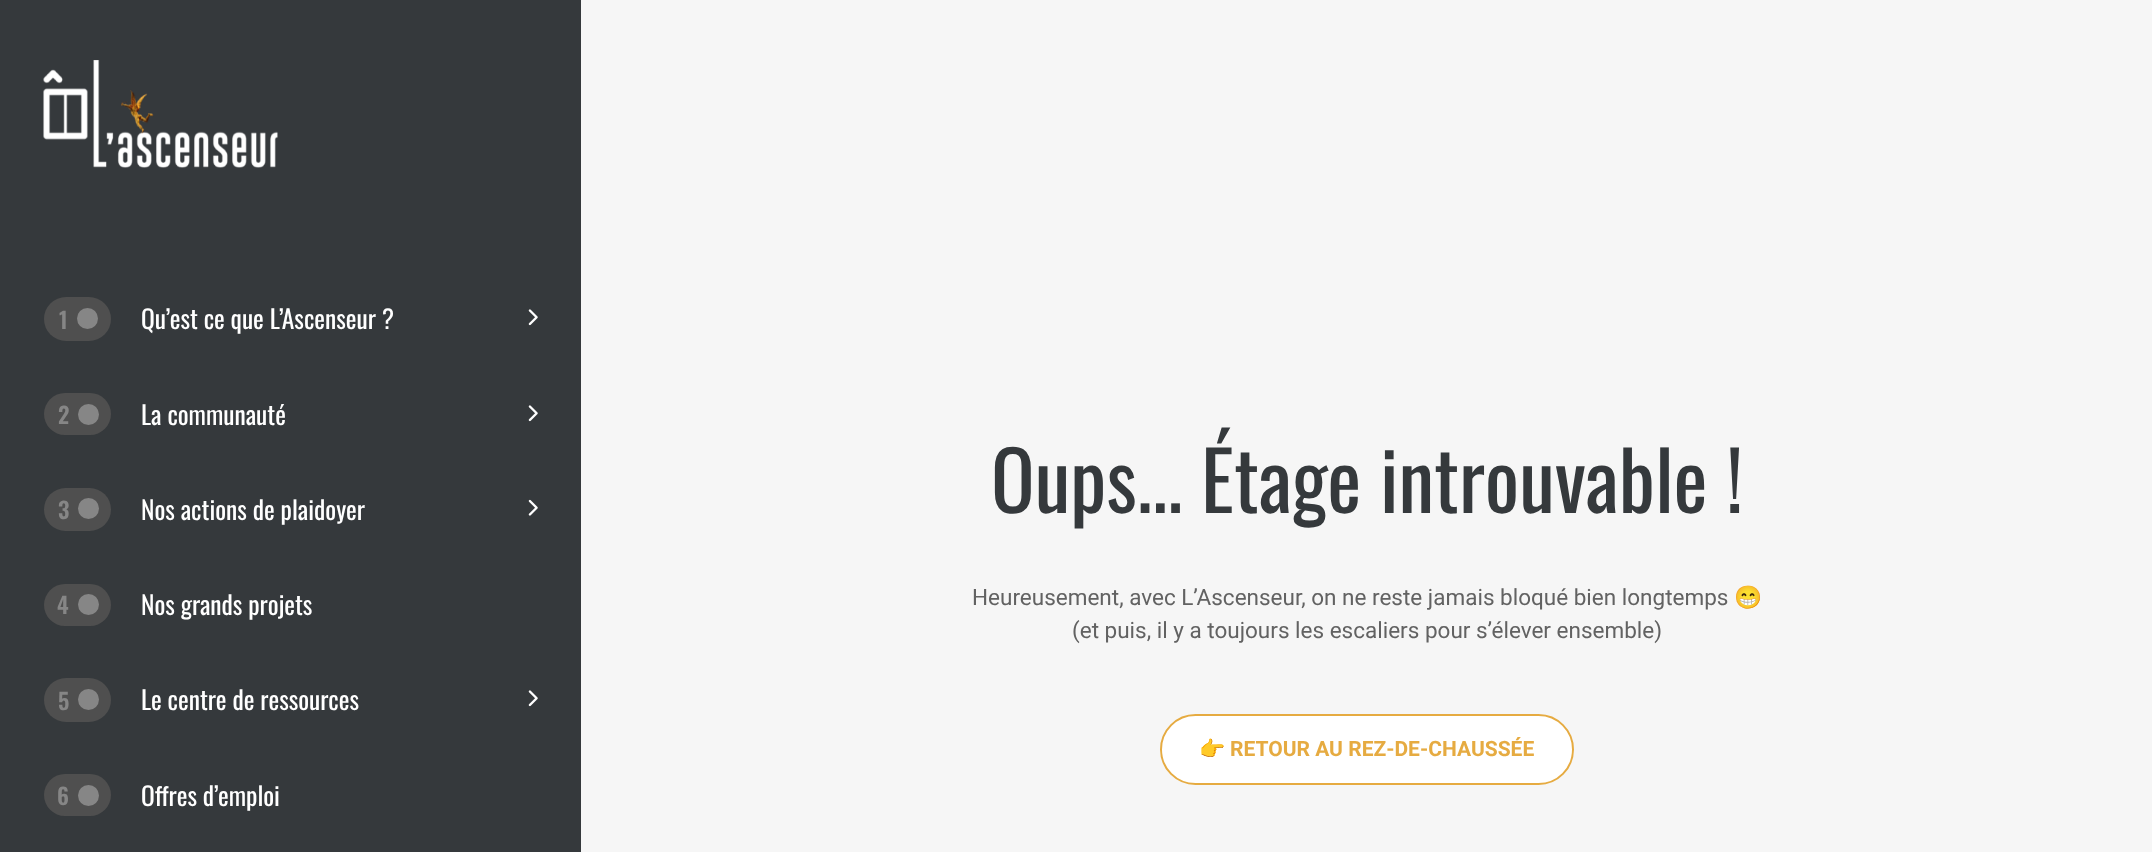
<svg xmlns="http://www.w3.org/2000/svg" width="2152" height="852">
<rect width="100%" height="100%" fill="#f6f6f6"/>
<rect width="581" height="852" fill="#35393c"/>
<image x="43" y="60" width="235" height="108" href="media/1.png"/>
<rect x="44" y="297" width="67" height="44" rx="22" fill="#4f4f4f"/>
<text x="59" y="329" style="font-family:Oswald;font-size:22.5px;font-weight:600;fill:#868686">1</text>
<circle cx="87.5" cy="318.5" r="10.5" fill="#868686"/>
<text x="141" y="329" style="font-family:Oswald;font-size:25.5px;fill:#fff">Qu’est ce que L’Ascenseur ?</text>
<image x="528" y="309" width="10" height="17" href="media/2.png"/>
<rect x="44" y="393" width="67" height="42" rx="21" fill="#4f4f4f"/>
<text x="58" y="424" style="font-family:Oswald;font-size:22.5px;font-weight:600;fill:#868686">2</text>
<circle cx="88.5" cy="414.5" r="10.5" fill="#868686"/>
<text x="141" y="425" style="font-family:Oswald;font-size:25.5px;fill:#fff">La communauté</text>
<image x="528" y="405" width="10" height="17" href="media/2.png"/>
<rect x="44" y="488" width="67" height="43" rx="21.5" fill="#4f4f4f"/>
<text x="58" y="519" style="font-family:Oswald;font-size:22.5px;font-weight:600;fill:#868686">3</text>
<circle cx="88.5" cy="508.5" r="10.5" fill="#868686"/>
<text x="141" y="520" style="font-family:Oswald;font-size:25.5px;fill:#fff">Nos actions de plaidoyer</text>
<image x="528" y="499" width="10" height="17" href="media/3.png"/>
<rect x="44" y="584" width="67" height="42" rx="21" fill="#4f4f4f"/>
<text x="57" y="614" style="font-family:Oswald;font-size:22.5px;font-weight:600;fill:#868686">4</text>
<circle cx="88.5" cy="604.5" r="10.5" fill="#868686"/>
<text x="141" y="615" style="font-family:Oswald;font-size:25.5px;fill:#fff">Nos grands projets</text>
<rect x="44" y="678" width="67" height="44" rx="22" fill="#4f4f4f"/>
<text x="58" y="710" style="font-family:Oswald;font-size:22.5px;font-weight:600;fill:#868686">5</text>
<circle cx="88.5" cy="699.5" r="10.5" fill="#868686"/>
<text x="141" y="710" style="font-family:Oswald;font-size:25.5px;fill:#fff">Le centre de ressources</text>
<image x="528" y="690" width="10" height="17" href="media/2.png"/>
<rect x="44" y="774" width="67" height="42" rx="21" fill="#4f4f4f"/>
<text x="57" y="805" style="font-family:Oswald;font-size:22.5px;font-weight:600;fill:#868686">6</text>
<circle cx="88.5" cy="795.5" r="10.5" fill="#868686"/>
<text x="141" y="806" style="font-family:Oswald;font-size:25.5px;fill:#fff">Offres d’emploi</text>
<text x="991" y="513" style="font-family:Oswald;font-size:81px;fill:#35393c">Oups... Étage introuvable !</text>
<text x="972" y="605" style="font-family:Roboto;font-size:22.5px;fill:#626262">Heureusement, avec L’Ascenseur, on ne reste jamais bloqué bien longtemps</text>
<text x="1734" y="605" style="font-family:Noto Color Emoji;font-size:22.5px;fill:#626262">😁</text>
<text x="1072" y="638" style="font-family:Roboto;font-size:22.5px;fill:#626262">(et puis, il y a toujours les escaliers pour s’élever ensemble)</text>
<rect x="1161" y="715" width="412" height="69" rx="34.5" fill="#fff" stroke="#e6ab41" stroke-width="2"/>
<text x="1199" y="756" style="font-family:Noto Color Emoji;font-size:21px;font-weight:bold;fill:#e6ab41">👉</text>
<text x="1230" y="756" style="font-family:Roboto;font-size:21px;font-weight:bold;fill:#e6ab41">RETOUR AU REZ-DE-CHAUSSÉE</text>
</svg>
